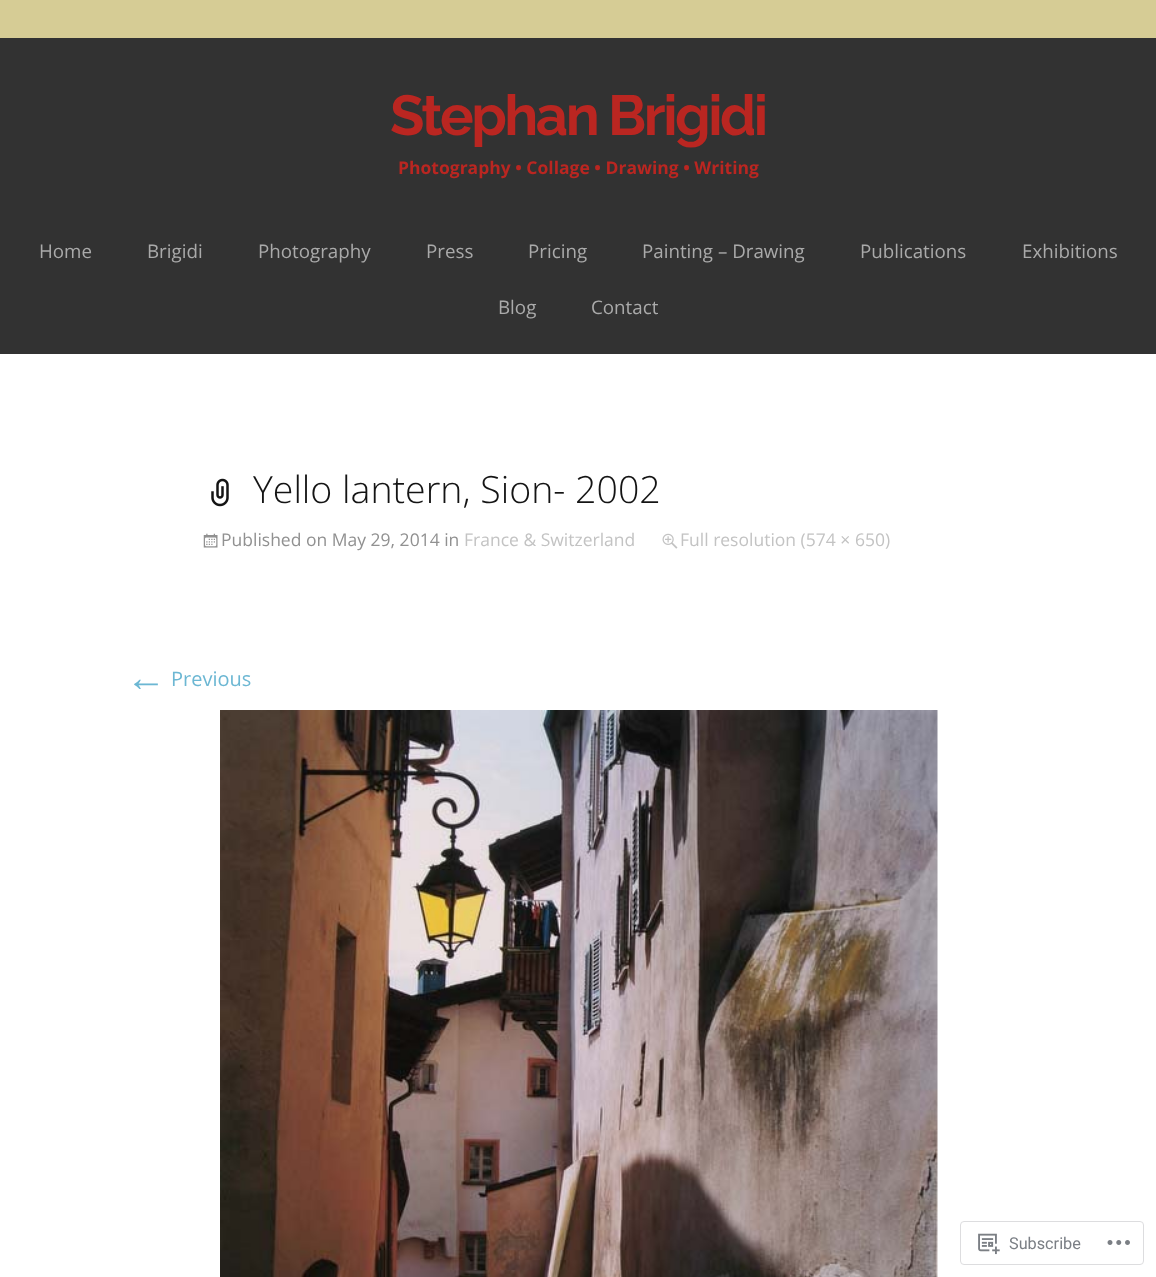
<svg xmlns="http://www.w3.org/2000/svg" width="1156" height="1277">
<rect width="100%" height="100%" fill="#d6cc95"/>
<rect y="38" width="1156" height="316" fill="#323232"/>
<text x="390" y="135" style="font-family:Raleway;font-size:56.25px;font-weight:bold;letter-spacing:-2.5px;fill:#ba2621">Stephan Brigidi</text>
<text x="398" y="174" style="font-family:Open Sans;font-size:17.5px;font-weight:bold;fill:#ba2621">Photography • Collage • Drawing • Writing</text>
<text x="39" y="258" style="font-family:Open Sans;font-size:18.75px;fill:#aaa">Home</text>
<text x="147" y="258" style="font-family:Open Sans;font-size:18.75px;fill:#aaa">Brigidi</text>
<text x="258" y="258" style="font-family:Open Sans;font-size:18.75px;fill:#aaa">Photography</text>
<text x="426" y="258" style="font-family:Open Sans;font-size:18.75px;fill:#aaa">Press</text>
<text x="528" y="258" style="font-family:Open Sans;font-size:18.75px;fill:#aaa">Pricing</text>
<text x="642" y="258" style="font-family:Open Sans;font-size:18.75px;fill:#aaa">Painting – Drawing</text>
<text x="860" y="258" style="font-family:Open Sans;font-size:18.75px;fill:#aaa">Publications</text>
<text x="1022" y="258" style="font-family:Open Sans;font-size:18.75px;fill:#aaa">Exhibitions</text>
<text x="498" y="314" style="font-family:Open Sans;font-size:18.75px;fill:#aaa">Blog</text>
<text x="591" y="314" style="font-family:Open Sans;font-size:18.75px;fill:#aaa">Contact</text>
<rect y="354" width="1156" height="923" fill="#fff"/>
<image x="211" y="478" width="18" height="29" href="media/1.png"/>
<text x="253" y="503" style="font-family:Open Sans;font-size:37.5px;font-weight:300;fill:#141414">Yello lantern, Sion- 2002</text>
<image x="203" y="533" width="15" height="15" href="media/2.png"/>
<text x="221" y="546" style="font-family:Open Sans;font-size:17.5px;fill:#919191">Published on May 29, 2014 in</text>
<text x="464" y="546" style="font-family:Open Sans;font-size:17.5px;fill:#c3c3c3">France &amp; Switzerland</text>
<image x="662" y="533" width="16" height="16" href="media/3.png"/>
<text x="680" y="546" style="font-family:Open Sans;font-size:17.5px;fill:#c3c3c3">Full resolution (574 × 650)</text>
<text x="126" y="691" style="font-family:Liberation Sans;font-size:40px;fill:#6cb7d3">←</text>
<text x="171" y="686" style="font-family:Open Sans;font-size:20px;fill:#6cb7d3">Previous</text>
<image x="220" y="710" width="718" height="567" href="media/4.png"/>
<rect x="960.5" y="1221.5" width="183" height="43" rx="3.5" fill="none" stroke="#dddddf"/>
<image x="978" y="1233" width="22" height="22" href="media/5.png"/>
<text x="1009" y="1249" style="font-family:Roboto;font-size:16.25px;fill:#7b7f85">Subscribe</text>
<image x="1107" y="1240" width="23" height="5" href="media/6.png"/>
</svg>
